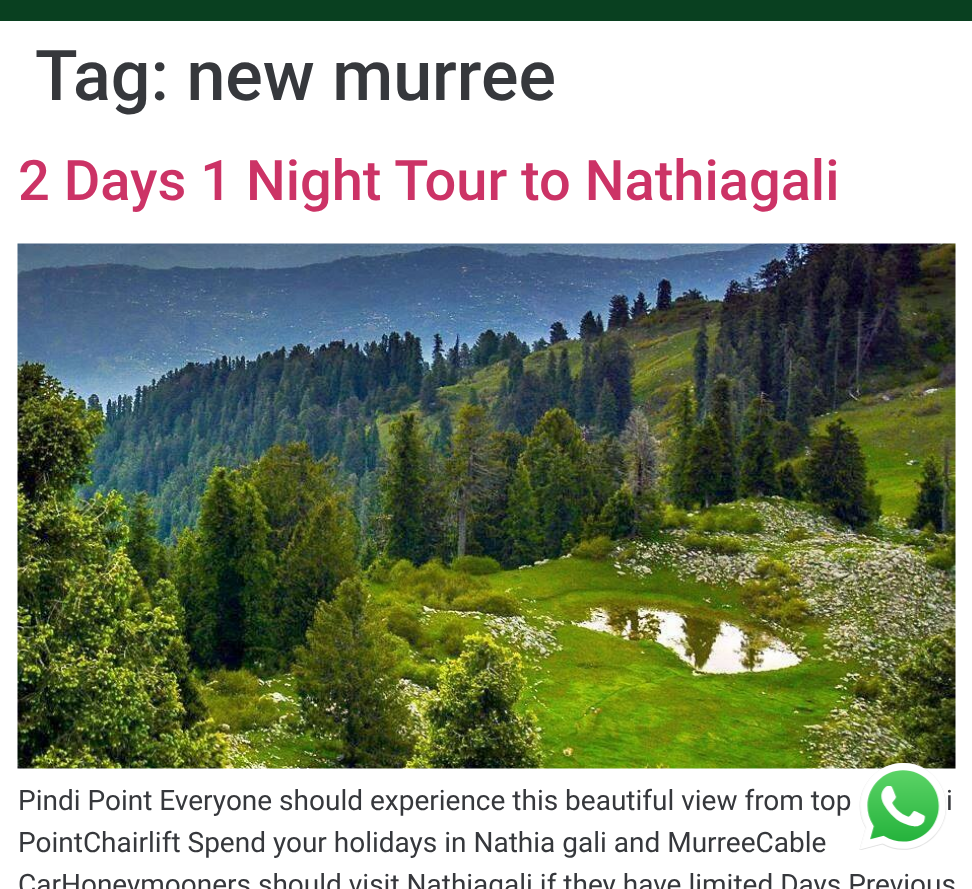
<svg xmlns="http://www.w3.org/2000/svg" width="972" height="889">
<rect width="100%" height="100%" fill="#fff"/>
<rect width="972" height="21" fill="#094020"/>
<text x="35" y="100" style="font-family:Roboto;font-size:70px;font-weight:500;fill:#36383c">Tag: new murree</text>
<text x="18" y="200" style="font-family:Roboto;font-size:56px;font-weight:500;fill:#c36">2 Days 1 Night Tour to Nathiagali</text>
<image x="17" y="243" width="939" height="526" href="media/1.png"/>
<text x="18" y="810" style="font-family:Roboto;font-size:28px;fill:#36383c">Pindi Point Everyone should experience this beautiful view from top</text>
<text x="946" y="810" style="font-family:Roboto;font-size:28px;fill:#36383c">i</text>
<text x="18" y="852" style="font-family:Roboto;font-size:28px;fill:#36383c">PointChairlift Spend your holidays in Nathia gali and MurreeCable</text>
<text x="18" y="894" style="font-family:Roboto;font-size:28px;fill:#36383c">CarHoneymooners should visit Nathiagali if they have limited Days Previous</text>
<image x="859" y="763" width="88" height="87" href="media/2.png"/>
</svg>
